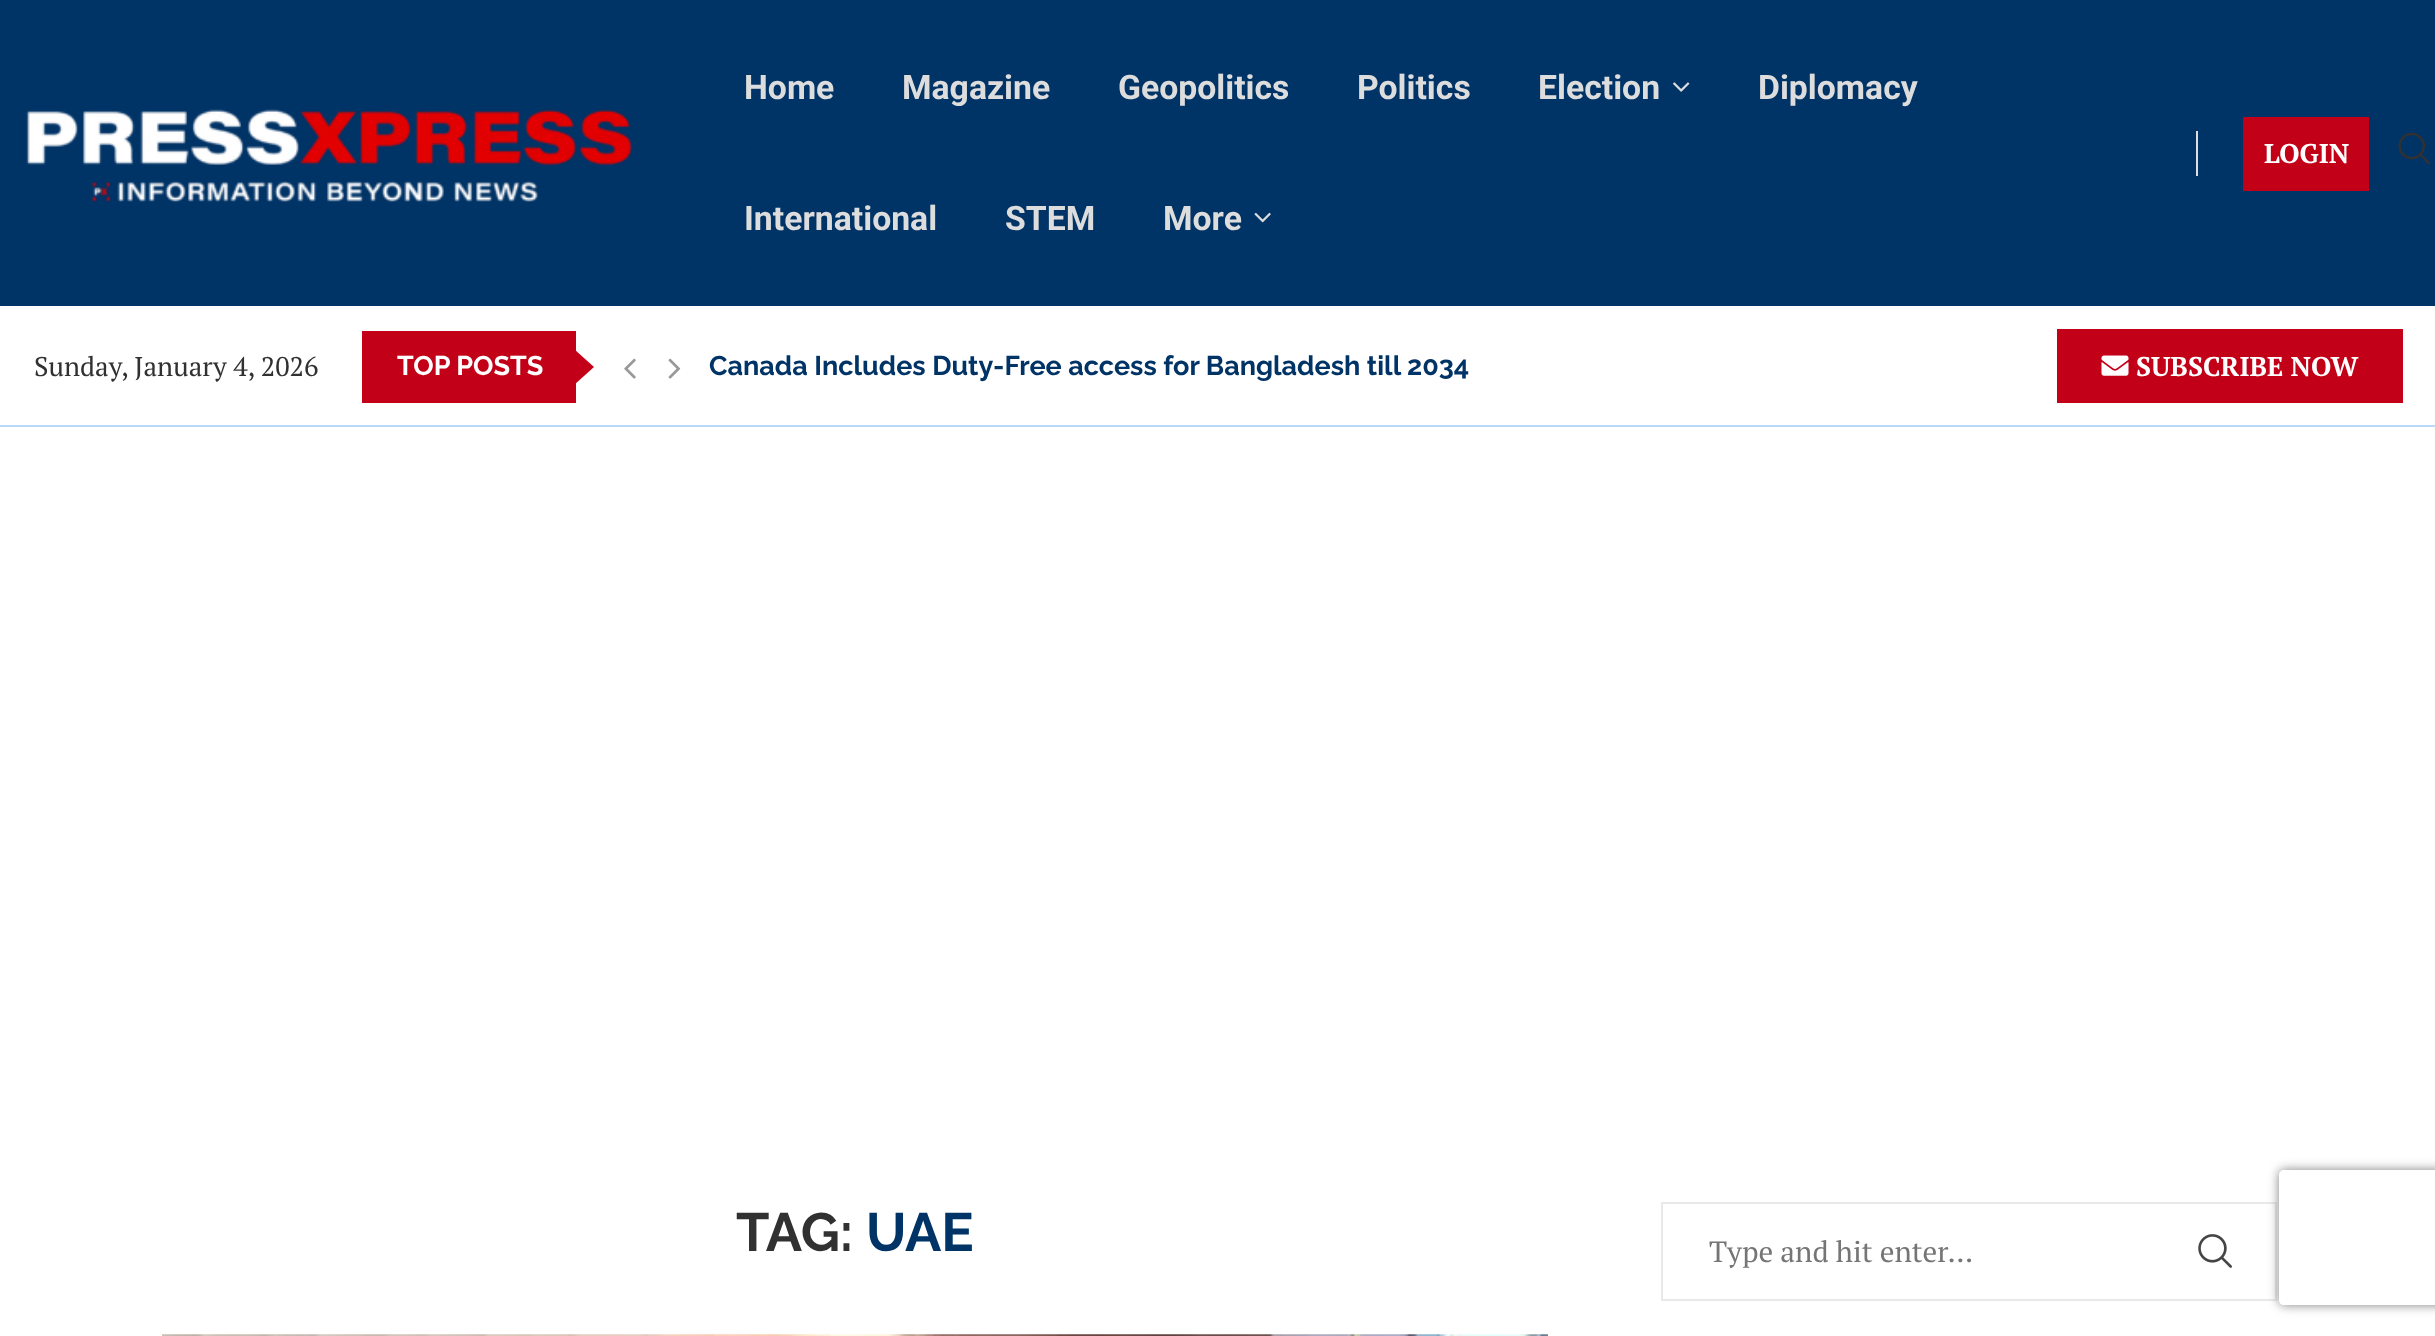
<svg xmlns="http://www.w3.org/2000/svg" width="2435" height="1336">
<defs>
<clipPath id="clip1"><path d="M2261 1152h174v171h-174zm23 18h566c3 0 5 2 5 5v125c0 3-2 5-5 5h-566c-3 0-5-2-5-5v-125c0-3 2-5 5-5z" clip-rule="evenodd"/></clipPath>
</defs>
<rect width="100%" height="100%" fill="#fff"/>
<rect width="2435" height="306" fill="#036"/>
<image x="26" y="109" width="607" height="94" href="media/1.png"/>
<text x="744" y="99" style="font-family:Roboto;font-size:33.75px;font-weight:bold;fill:#ddd">Home</text>
<text x="902" y="99" style="font-family:Roboto;font-size:33.75px;font-weight:bold;fill:#ddd">Magazine</text>
<text x="1118" y="99" style="font-family:Roboto;font-size:33.75px;font-weight:bold;fill:#ddd">Geopolitics</text>
<text x="1357" y="99" style="font-family:Roboto;font-size:33.75px;font-weight:bold;fill:#ddd">Politics</text>
<text x="1538" y="99" style="font-family:Roboto;font-size:33.75px;font-weight:bold;fill:#ddd">Election</text>
<image x="1673" y="82" width="17" height="10" href="media/2.png"/>
<text x="1758" y="99" style="font-family:Roboto;font-size:33.75px;font-weight:bold;fill:#ddd">Diplomacy</text>
<text x="744" y="230" style="font-family:Roboto;font-size:33.75px;font-weight:bold;fill:#ddd">International</text>
<text x="1005" y="230" style="font-family:Roboto;font-size:33.75px;font-weight:bold;fill:#ddd">STEM</text>
<text x="1163" y="230" style="font-family:Roboto;font-size:33.75px;font-weight:bold;fill:#ddd">More</text>
<image x="1254" y="212" width="17" height="11" href="media/3.png"/>
<rect x="2196" y="131" width="2" height="45" fill="#dedede"/>
<rect x="2243" y="117" width="126" height="74" fill="#c20017"/>
<text x="2264" y="163" style="font-family:PT Serif;font-size:27px;font-weight:bold;fill:#fff">LOGIN</text>
<image x="2398" y="132" width="32" height="33" href="media/4.png"/>
<rect y="425" width="2435" height="2" fill="#bad9f8"/>
<text x="34" y="376" style="font-family:PT Serif;font-size:27px;fill:#313131">Sunday, January 4, 2026</text>
<rect x="362" y="331" width="214" height="72" fill="#c20017"/>
<text x="397" y="375" style="font-family:Raleway;font-size:27px;font-weight:bold;fill:#fff">TOP POSTS</text>
<path d="M574 385v-36l20 18z" fill="#c20017"/>
<image x="624" y="358" width="12" height="21" href="media/5.png"/>
<image x="668" y="358" width="13" height="21" href="media/6.png"/>
<text x="709" y="375" style="font-family:Raleway;font-size:27px;font-weight:bold;fill:#036">Canada Includes Duty-Free access for Bangladesh till 2034</text>
<rect x="2057" y="329" width="346" height="74" fill="#c20017"/>
<image x="2101" y="355" width="28" height="21" href="media/7.png"/>
<text x="2136" y="376" style="font-family:PT Serif;font-size:27px;font-weight:bold;fill:#fff">SUBSCRIBE NOW</text>
<text x="736" y="1251" style="font-family:Raleway;font-size:54px;font-weight:bold;fill:#313131">TAG:</text>
<text x="866" y="1251" style="font-family:Raleway;font-size:54px;font-weight:bold;fill:#036">UAE</text>
<image x="162" y="1334" width="1386" height="2" href="media/8.png"/>
<rect x="1662" y="1203" width="614" height="97" fill="none" stroke="#e9e9e9" stroke-width="2"/>
<text x="1709" y="1262" style="font-family:PT Serif;font-size:29.25px;fill:#757575">Type and hit enter...</text>
<image x="2198" y="1234" width="34" height="34" href="media/9.png"/>
<g clip-path="url(#clip1)">
<rect x="2279" y="1170" width="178" height="135" rx="5" fill="#808080" filter="blur(5.5px)"/>
</g>
</svg>
